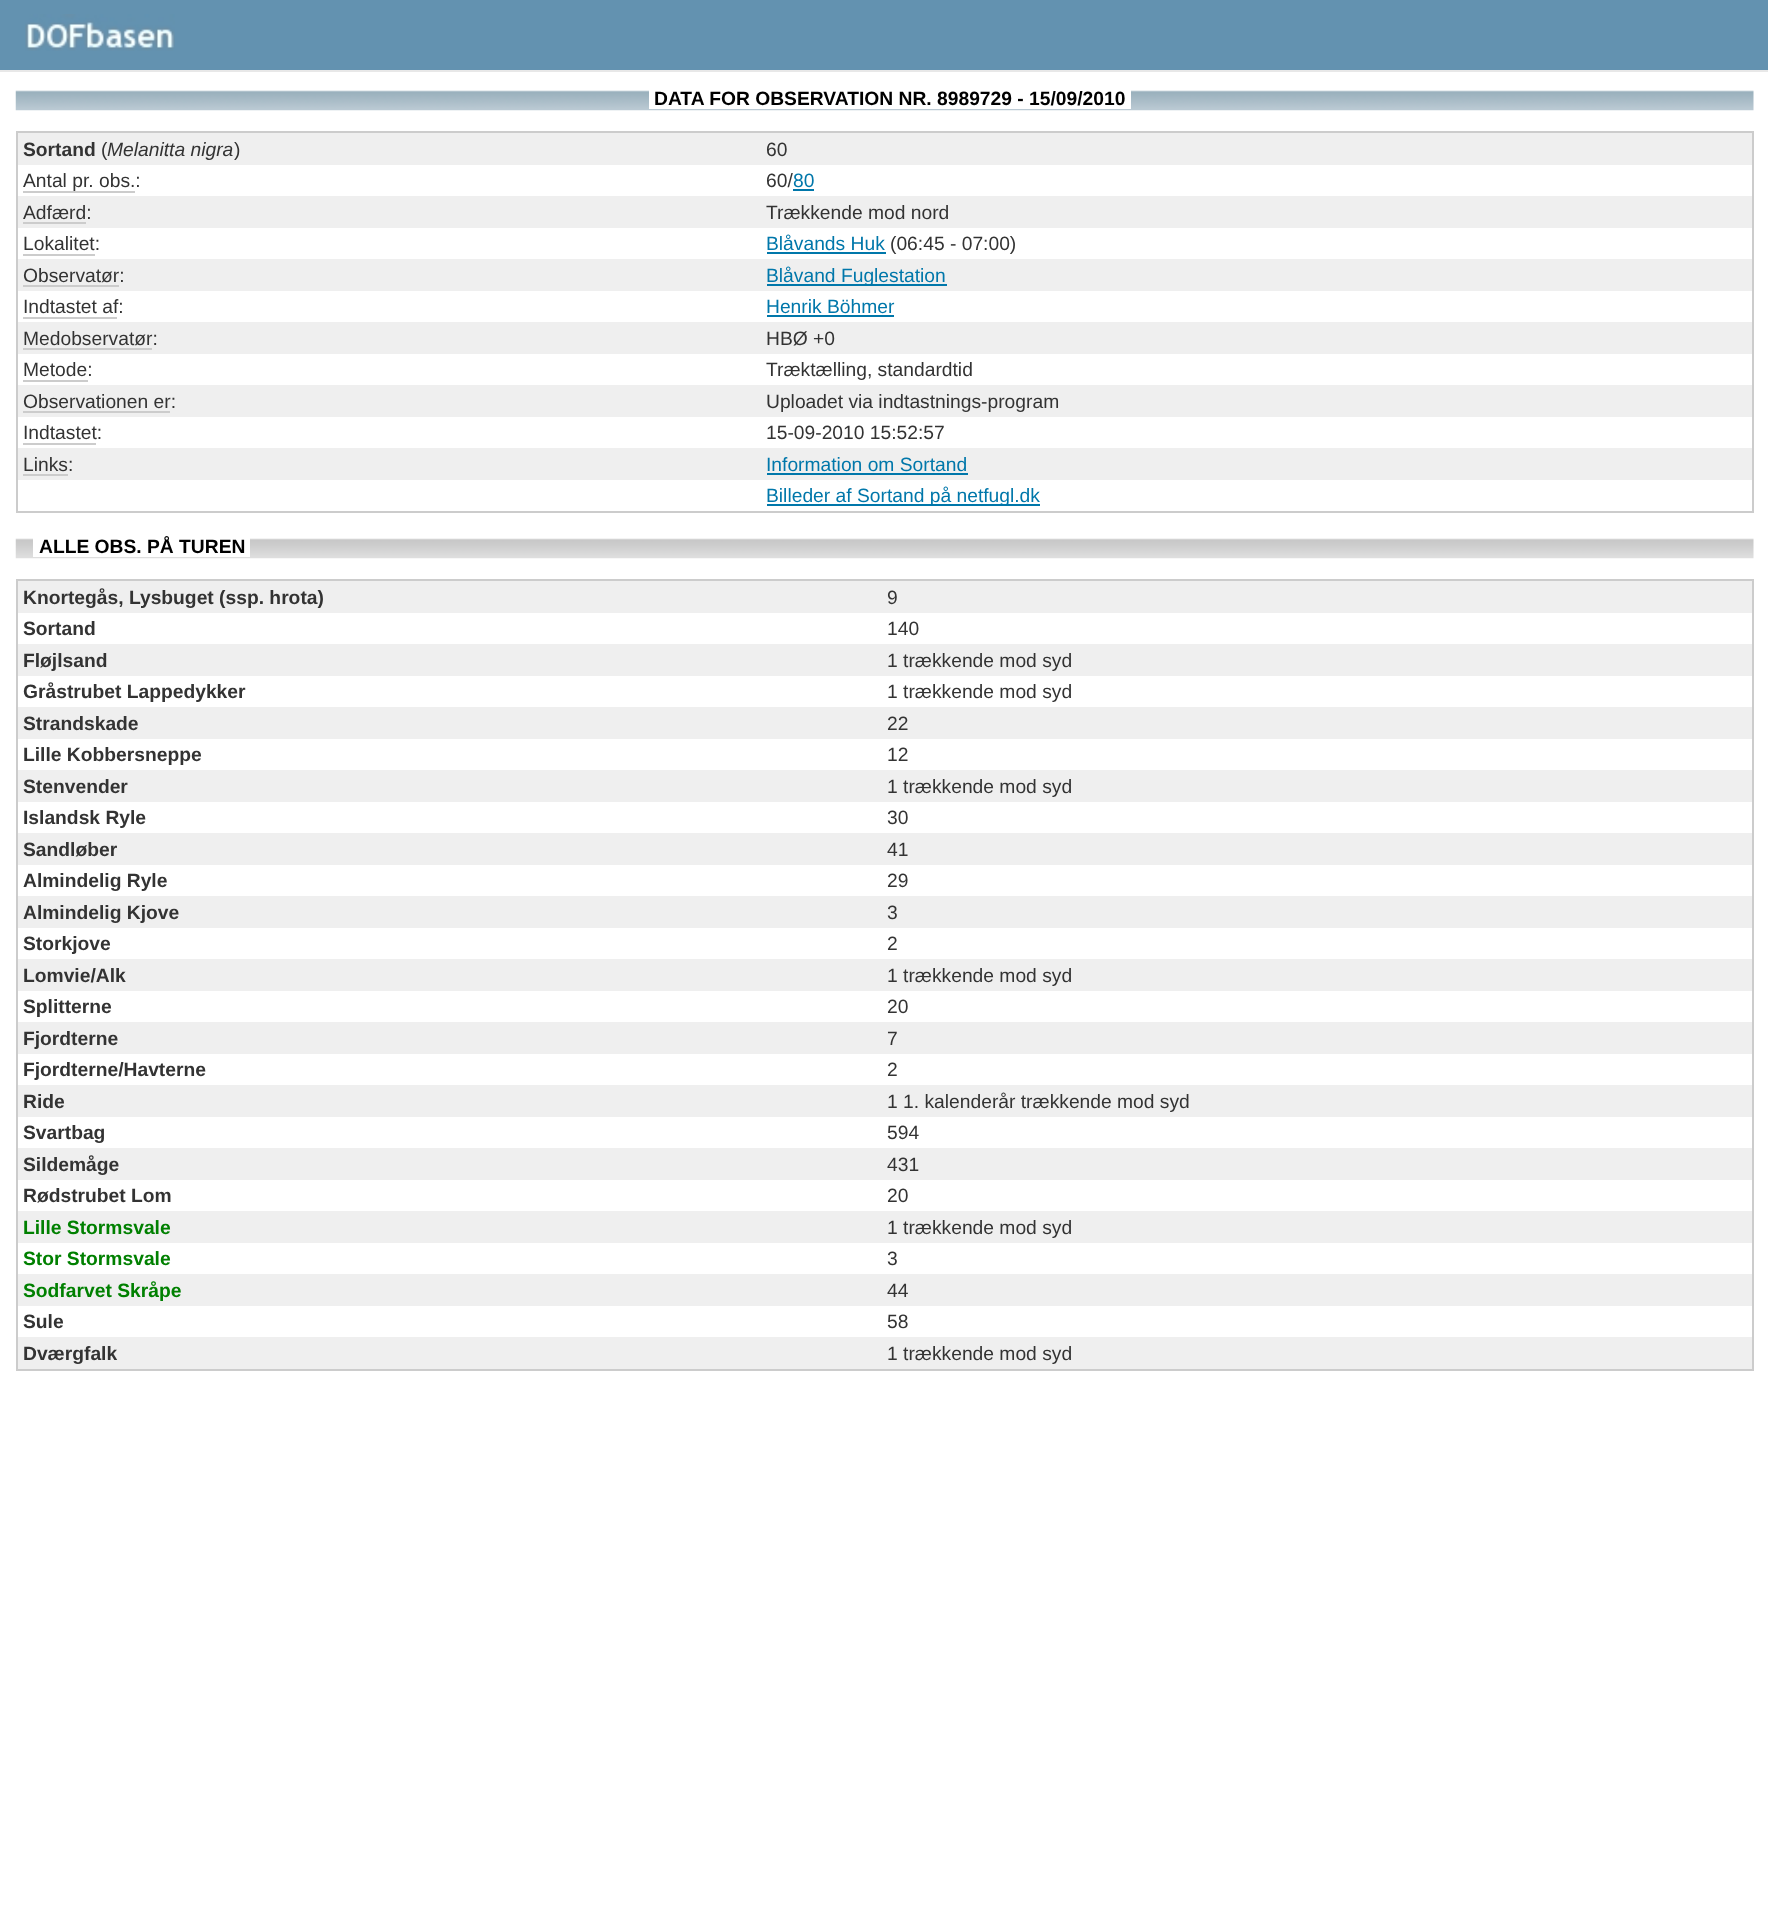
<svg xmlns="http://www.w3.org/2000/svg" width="1768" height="1920">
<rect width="100%" height="100%" fill="#fff"/>
<rect width="1768" height="70" fill="#6392b0"/>
<rect y="70" width="1768" height="2" fill="#e8e8e8"/>
<image x="25" y="14" width="150" height="37" href="media/1.png"/>
<image x="15" y="90" width="1739" height="21" href="media/2.png"/>
<rect x="649" y="90" width="482" height="19" fill="#fff"/>
<text x="654" y="105" style="font-family:Liberation Sans;font-size:19.25px;font-weight:bold;fill:#000">DATA FOR OBSERVATION NR. 8989729 - 15/09/2010</text>
<rect x="16" y="131" width="1738" height="2" fill="#ccc"/>
<rect x="1752" y="131" width="2" height="382" fill="#ccc"/>
<rect x="16" y="511" width="1738" height="2" fill="#ccc"/>
<rect x="16" y="131" width="2" height="382" fill="#ccc"/>
<rect x="18" y="133" width="1734" height="32" fill="#efefef"/>
<text x="23" y="156" style="font-family:Liberation Sans;font-size:19.25px;font-weight:bold;fill:#333">Sortand</text>
<text x="101" y="156" style="font-family:Liberation Sans;font-size:19.25px;fill:#333">(</text>
<text x="107" y="156" style="font-family:Liberation Sans;font-size:19.25px;font-style:italic;fill:#333">Melanitta nigra</text>
<text x="234" y="156" style="font-family:Liberation Sans;font-size:19.25px;fill:#333">)</text>
<text x="766" y="156" style="font-family:Liberation Sans;font-size:19.25px;fill:#333">60</text>
<text x="23" y="187" style="font-family:Liberation Sans;font-size:19.25px;fill:#333">Antal pr. obs.:</text>
<rect x="23" y="191" width="112" height="2" fill="#ccc"/>
<text x="766" y="187" style="font-family:Liberation Sans;font-size:19.25px;fill:#333">60/</text>
<text x="793" y="187" style="font-family:Liberation Sans;font-size:19.25px;fill:#07a">80</text>
<rect x="793" y="189" width="21" height="2" fill="#07a"/>
<rect x="18" y="196" width="1734" height="32" fill="#efefef"/>
<text x="23" y="219" style="font-family:Liberation Sans;font-size:19.25px;fill:#333">Adfærd:</text>
<rect x="23" y="222" width="63" height="2" fill="#ccc"/>
<text x="766" y="219" style="font-family:Liberation Sans;font-size:19.25px;fill:#333">Trækkende mod nord</text>
<text x="23" y="250" style="font-family:Liberation Sans;font-size:19.25px;fill:#333">Lokalitet:</text>
<rect x="23" y="254" width="72" height="2" fill="#ccc"/>
<text x="766" y="250" style="font-family:Liberation Sans;font-size:19.25px;fill:#07a">Blåvands Huk</text>
<rect x="767" y="252" width="119" height="2" fill="#07a"/>
<text x="890" y="250" style="font-family:Liberation Sans;font-size:19.25px;fill:#333">(06:45 - 07:00)</text>
<rect x="18" y="259" width="1734" height="32" fill="#efefef"/>
<text x="23" y="282" style="font-family:Liberation Sans;font-size:19.25px;fill:#333">Observatør:</text>
<rect x="23" y="285" width="96" height="2" fill="#ccc"/>
<rect x="767" y="284" width="180" height="2" fill="#07a"/>
<text x="766" y="282" style="font-family:Liberation Sans;font-size:19.25px;fill:#07a">Blåvand Fuglestation</text>
<text x="23" y="313" style="font-family:Liberation Sans;font-size:19.25px;fill:#333">Indtastet af:</text>
<rect x="23" y="317" width="94" height="2" fill="#ccc"/>
<text x="766" y="313" style="font-family:Liberation Sans;font-size:19.25px;fill:#07a">Henrik Böhmer</text>
<rect x="767" y="315" width="127" height="2" fill="#07a"/>
<rect x="18" y="322" width="1734" height="32" fill="#efefef"/>
<text x="23" y="345" style="font-family:Liberation Sans;font-size:19.25px;fill:#333">Medobservatør:</text>
<rect x="23" y="348" width="129" height="2" fill="#ccc"/>
<text x="766" y="345" style="font-family:Liberation Sans;font-size:19.25px;fill:#333">HBØ +0</text>
<text x="23" y="376" style="font-family:Liberation Sans;font-size:19.25px;fill:#333">Metode:</text>
<rect x="23" y="380" width="65" height="2" fill="#ccc"/>
<text x="766" y="376" style="font-family:Liberation Sans;font-size:19.25px;fill:#333">Træktælling, standardtid</text>
<rect x="18" y="385" width="1734" height="32" fill="#efefef"/>
<text x="23" y="408" style="font-family:Liberation Sans;font-size:19.25px;fill:#333">Observationen er:</text>
<rect x="23" y="411" width="147" height="2" fill="#ccc"/>
<text x="766" y="408" style="font-family:Liberation Sans;font-size:19.25px;fill:#333">Uploadet via indtastnings-program</text>
<text x="23" y="439" style="font-family:Liberation Sans;font-size:19.25px;fill:#333">Indtastet:</text>
<rect x="23" y="443" width="73" height="2" fill="#ccc"/>
<text x="766" y="439" style="font-family:Liberation Sans;font-size:19.25px;fill:#333">15-09-2010 15:52:57</text>
<rect x="18" y="448" width="1734" height="32" fill="#efefef"/>
<text x="23" y="471" style="font-family:Liberation Sans;font-size:19.25px;fill:#333">Links:</text>
<rect x="23" y="474" width="45" height="2" fill="#ccc"/>
<text x="766" y="471" style="font-family:Liberation Sans;font-size:19.25px;fill:#07a">Information om Sortand</text>
<rect x="767" y="473" width="201" height="2" fill="#07a"/>
<rect x="767" y="504" width="273" height="2" fill="#07a"/>
<text x="766" y="502" style="font-family:Liberation Sans;font-size:19.25px;fill:#07a">Billeder af Sortand på netfugl.dk</text>
<image x="15" y="538" width="1739" height="21" href="media/3.png"/>
<rect x="33" y="538" width="217" height="19" fill="#fff"/>
<text x="39" y="553" style="font-family:Liberation Sans;font-size:19.25px;font-weight:bold;fill:#000">ALLE OBS. PÅ TUREN</text>
<rect x="16" y="579" width="1738" height="2" fill="#ccc"/>
<rect x="1752" y="579" width="2" height="791" fill="#ccc"/>
<rect x="16" y="1369" width="1738" height="2" fill="#ccc"/>
<rect x="16" y="579" width="2" height="791" fill="#ccc"/>
<rect x="18" y="581" width="1734" height="32" fill="#efefef"/>
<text x="23" y="604" style="font-family:Liberation Sans;font-size:19.25px;font-weight:bold;fill:#333">Knortegås, Lysbuget (ssp. hrota)</text>
<text x="887" y="604" style="font-family:Liberation Sans;font-size:19.25px;fill:#333">9</text>
<text x="23" y="635" style="font-family:Liberation Sans;font-size:19.25px;font-weight:bold;fill:#333">Sortand</text>
<text x="887" y="635" style="font-family:Liberation Sans;font-size:19.25px;fill:#333">140</text>
<rect x="18" y="644" width="1734" height="32" fill="#efefef"/>
<text x="23" y="667" style="font-family:Liberation Sans;font-size:19.25px;font-weight:bold;fill:#333">Fløjlsand</text>
<text x="887" y="667" style="font-family:Liberation Sans;font-size:19.25px;fill:#333">1 trækkende mod syd</text>
<text x="23" y="698" style="font-family:Liberation Sans;font-size:19.25px;font-weight:bold;fill:#333">Gråstrubet Lappedykker</text>
<text x="887" y="698" style="font-family:Liberation Sans;font-size:19.25px;fill:#333">1 trækkende mod syd</text>
<rect x="18" y="707" width="1734" height="32" fill="#efefef"/>
<text x="23" y="730" style="font-family:Liberation Sans;font-size:19.25px;font-weight:bold;fill:#333">Strandskade</text>
<text x="887" y="730" style="font-family:Liberation Sans;font-size:19.25px;fill:#333">22</text>
<text x="23" y="761" style="font-family:Liberation Sans;font-size:19.25px;font-weight:bold;fill:#333">Lille Kobbersneppe</text>
<text x="887" y="761" style="font-family:Liberation Sans;font-size:19.25px;fill:#333">12</text>
<rect x="18" y="770" width="1734" height="32" fill="#efefef"/>
<text x="23" y="793" style="font-family:Liberation Sans;font-size:19.25px;font-weight:bold;fill:#333">Stenvender</text>
<text x="887" y="793" style="font-family:Liberation Sans;font-size:19.25px;fill:#333">1 trækkende mod syd</text>
<text x="23" y="824" style="font-family:Liberation Sans;font-size:19.25px;font-weight:bold;fill:#333">Islandsk Ryle</text>
<text x="887" y="824" style="font-family:Liberation Sans;font-size:19.25px;fill:#333">30</text>
<rect x="18" y="833" width="1734" height="32" fill="#efefef"/>
<text x="23" y="856" style="font-family:Liberation Sans;font-size:19.25px;font-weight:bold;fill:#333">Sandløber</text>
<text x="887" y="856" style="font-family:Liberation Sans;font-size:19.25px;fill:#333">41</text>
<text x="23" y="887" style="font-family:Liberation Sans;font-size:19.25px;font-weight:bold;fill:#333">Almindelig Ryle</text>
<text x="887" y="887" style="font-family:Liberation Sans;font-size:19.25px;fill:#333">29</text>
<rect x="18" y="896" width="1734" height="32" fill="#efefef"/>
<text x="23" y="919" style="font-family:Liberation Sans;font-size:19.25px;font-weight:bold;fill:#333">Almindelig Kjove</text>
<text x="887" y="919" style="font-family:Liberation Sans;font-size:19.25px;fill:#333">3</text>
<text x="23" y="950" style="font-family:Liberation Sans;font-size:19.25px;font-weight:bold;fill:#333">Storkjove</text>
<text x="887" y="950" style="font-family:Liberation Sans;font-size:19.25px;fill:#333">2</text>
<rect x="18" y="959" width="1734" height="32" fill="#efefef"/>
<text x="23" y="982" style="font-family:Liberation Sans;font-size:19.25px;font-weight:bold;fill:#333">Lomvie/Alk</text>
<text x="887" y="982" style="font-family:Liberation Sans;font-size:19.25px;fill:#333">1 trækkende mod syd</text>
<text x="23" y="1013" style="font-family:Liberation Sans;font-size:19.25px;font-weight:bold;fill:#333">Splitterne</text>
<text x="887" y="1013" style="font-family:Liberation Sans;font-size:19.25px;fill:#333">20</text>
<rect x="18" y="1022" width="1734" height="32" fill="#efefef"/>
<text x="23" y="1045" style="font-family:Liberation Sans;font-size:19.25px;font-weight:bold;fill:#333">Fjordterne</text>
<text x="887" y="1045" style="font-family:Liberation Sans;font-size:19.25px;fill:#333">7</text>
<text x="23" y="1076" style="font-family:Liberation Sans;font-size:19.25px;font-weight:bold;fill:#333">Fjordterne/Havterne</text>
<text x="887" y="1076" style="font-family:Liberation Sans;font-size:19.25px;fill:#333">2</text>
<rect x="18" y="1085" width="1734" height="32" fill="#efefef"/>
<text x="23" y="1108" style="font-family:Liberation Sans;font-size:19.25px;font-weight:bold;fill:#333">Ride</text>
<text x="887" y="1108" style="font-family:Liberation Sans;font-size:19.25px;fill:#333">1 1. kalenderår trækkende mod syd</text>
<text x="23" y="1139" style="font-family:Liberation Sans;font-size:19.25px;font-weight:bold;fill:#333">Svartbag</text>
<text x="887" y="1139" style="font-family:Liberation Sans;font-size:19.25px;fill:#333">594</text>
<rect x="18" y="1148" width="1734" height="32" fill="#efefef"/>
<text x="23" y="1171" style="font-family:Liberation Sans;font-size:19.25px;font-weight:bold;fill:#333">Sildemåge</text>
<text x="887" y="1171" style="font-family:Liberation Sans;font-size:19.25px;fill:#333">431</text>
<text x="23" y="1202" style="font-family:Liberation Sans;font-size:19.25px;font-weight:bold;fill:#333">Rødstrubet Lom</text>
<text x="887" y="1202" style="font-family:Liberation Sans;font-size:19.25px;fill:#333">20</text>
<rect x="18" y="1211" width="1734" height="32" fill="#efefef"/>
<text x="23" y="1234" style="font-family:Liberation Sans;font-size:19.25px;font-weight:bold;fill:#008000">Lille Stormsvale</text>
<text x="887" y="1234" style="font-family:Liberation Sans;font-size:19.25px;fill:#333">1 trækkende mod syd</text>
<text x="23" y="1265" style="font-family:Liberation Sans;font-size:19.25px;font-weight:bold;fill:#008000">Stor Stormsvale</text>
<text x="887" y="1265" style="font-family:Liberation Sans;font-size:19.25px;fill:#333">3</text>
<rect x="18" y="1274" width="1734" height="32" fill="#efefef"/>
<text x="23" y="1297" style="font-family:Liberation Sans;font-size:19.25px;font-weight:bold;fill:#008000">Sodfarvet Skråpe</text>
<text x="887" y="1297" style="font-family:Liberation Sans;font-size:19.25px;fill:#333">44</text>
<text x="23" y="1328" style="font-family:Liberation Sans;font-size:19.25px;font-weight:bold;fill:#333">Sule</text>
<text x="887" y="1328" style="font-family:Liberation Sans;font-size:19.25px;fill:#333">58</text>
<rect x="18" y="1337" width="1734" height="32" fill="#efefef"/>
<text x="23" y="1360" style="font-family:Liberation Sans;font-size:19.25px;font-weight:bold;fill:#333">Dværgfalk</text>
<text x="887" y="1360" style="font-family:Liberation Sans;font-size:19.25px;fill:#333">1 trækkende mod syd</text>
</svg>
